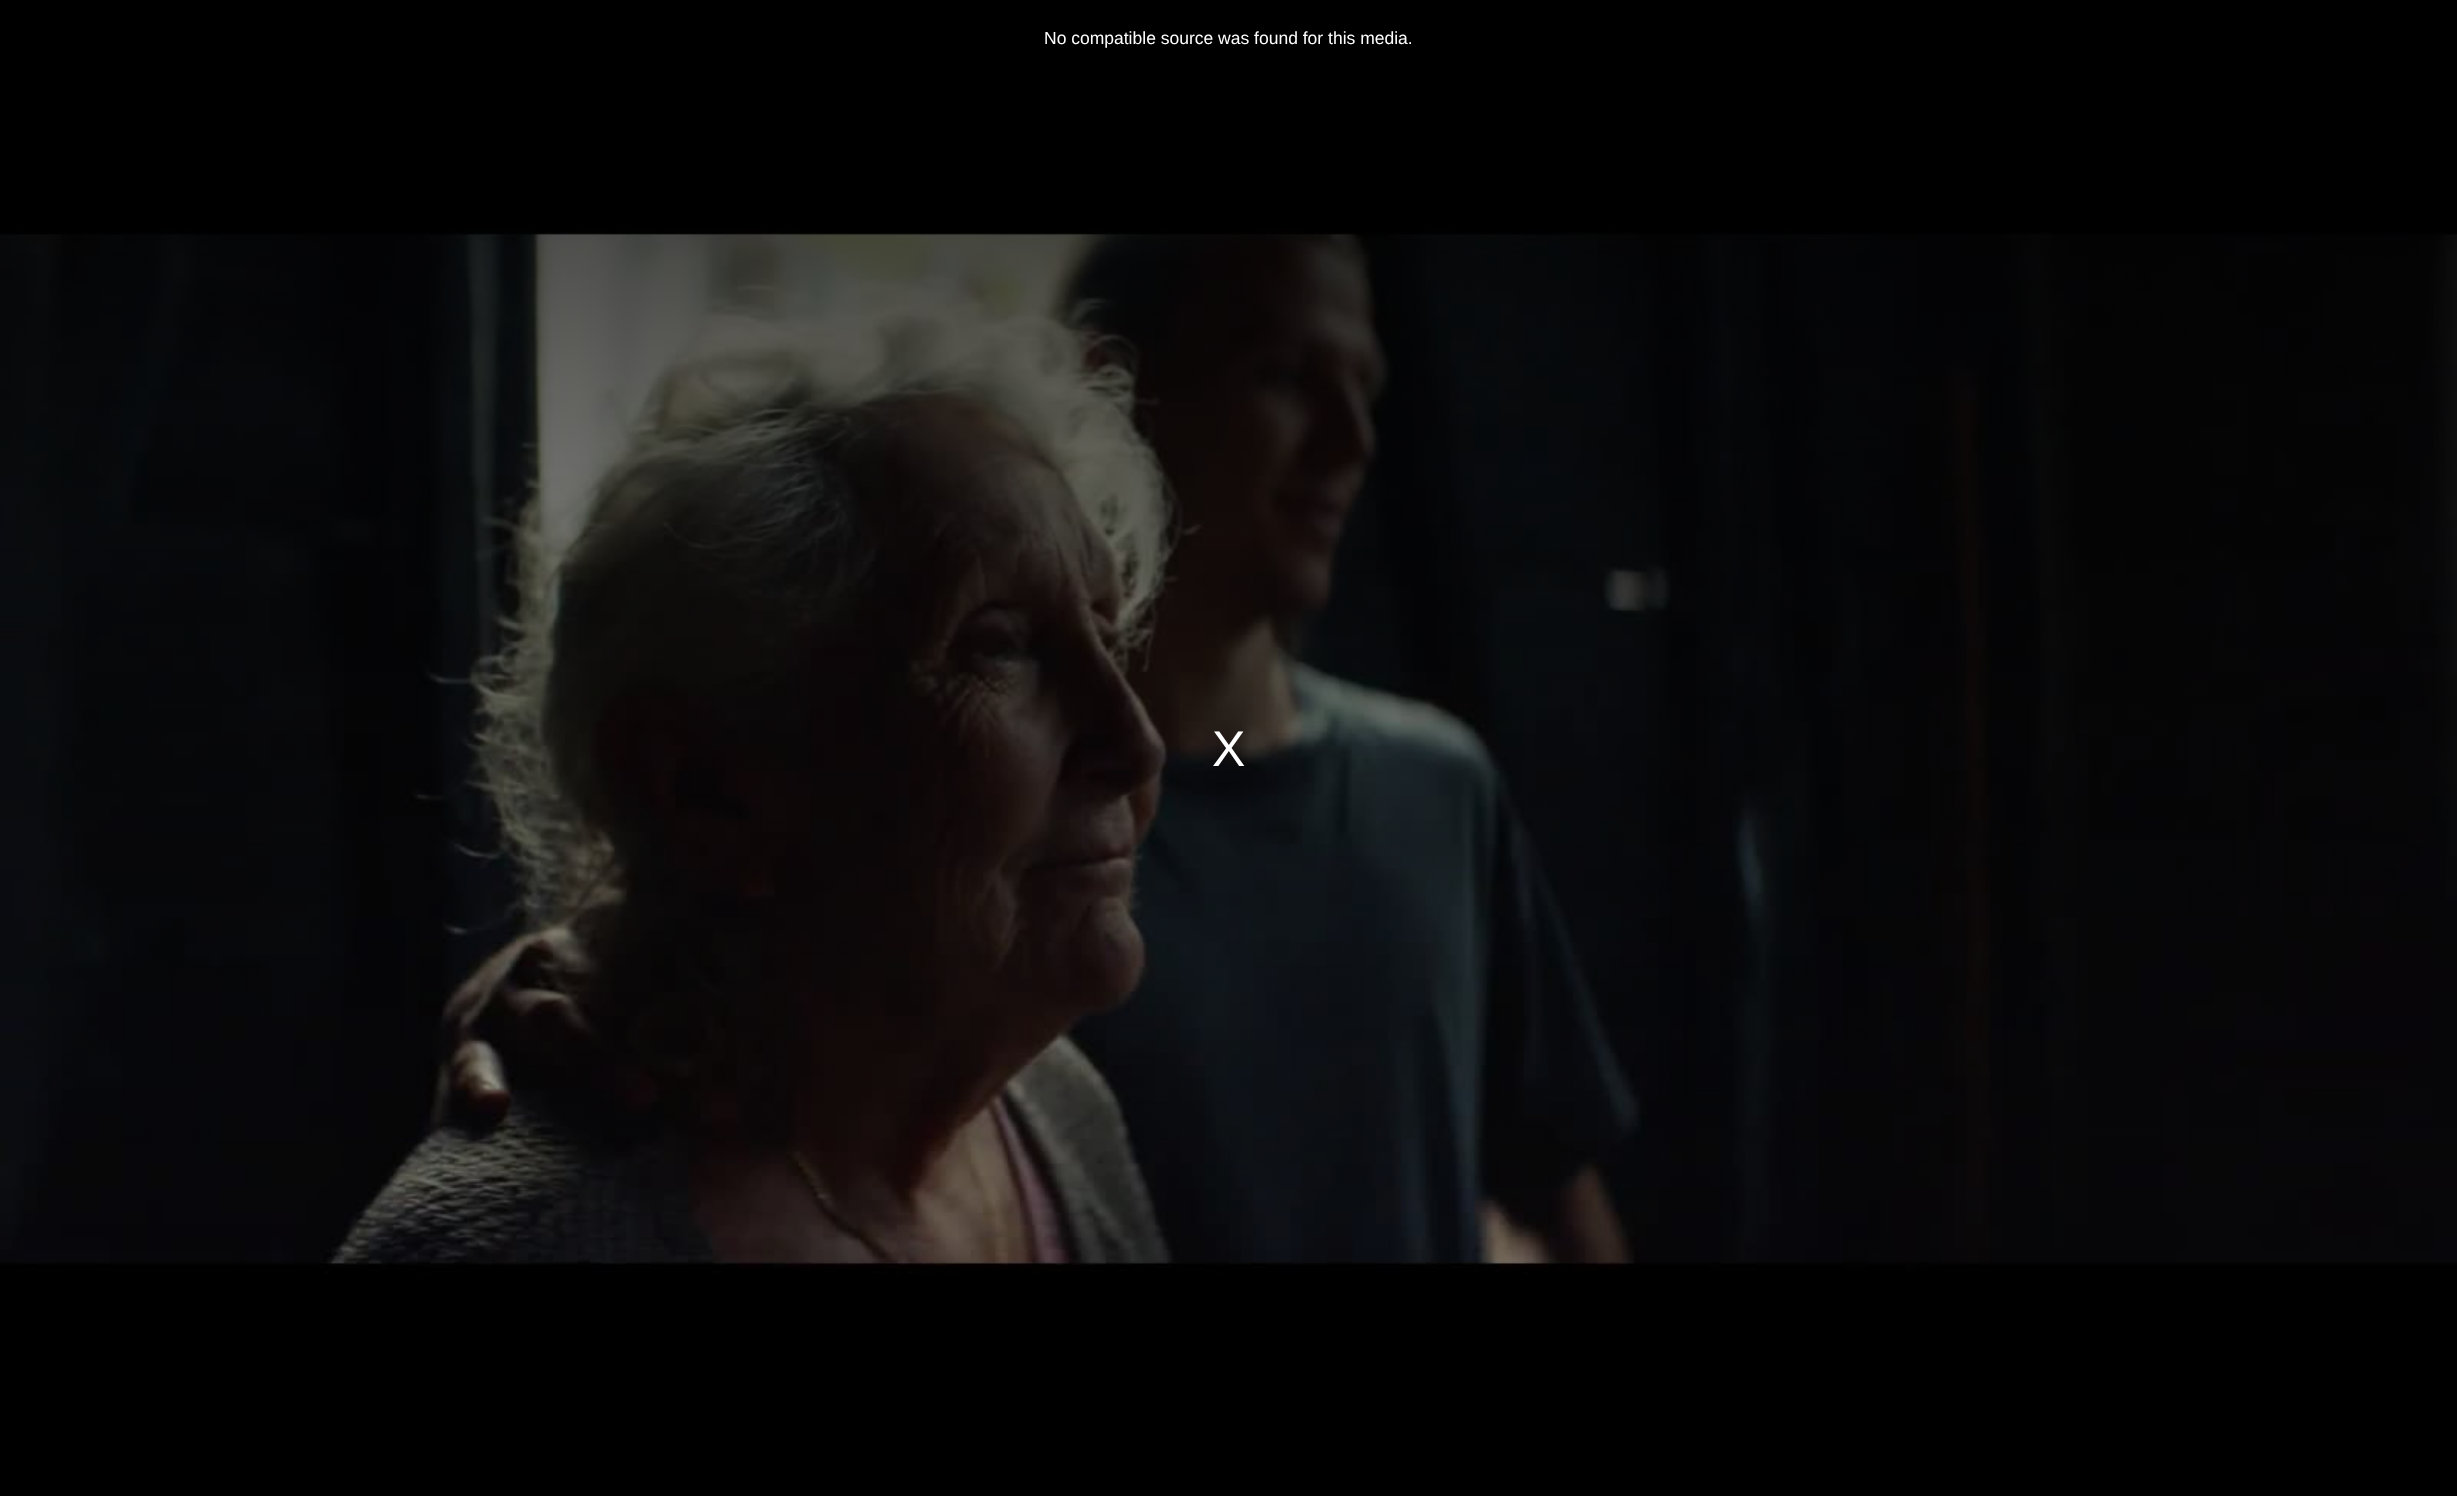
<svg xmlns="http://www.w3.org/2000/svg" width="2457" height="1496">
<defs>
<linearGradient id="g1" gradientUnits="userSpaceOnUse" x1="1229" y1="0" x2="1229" y2="1496"><stop offset="0" stop-color="#000" stop-opacity="0.8"/><stop offset="1" stop-color="#000" stop-opacity="0"/></linearGradient>
</defs>
<rect width="100%" height="100%" fill="#000"/>
<image x="0" y="230" width="2457" height="1044" href="media/1.png"/>
<rect y="230" width="2457" height="1034" fill="url(#g1)"/>
<text x="1044" y="44" style="font-family:Liberation Sans;font-size:17.5px;fill:#fff">No compatible source was found for this media.</text>
<text x="1212" y="766" style="font-family:Liberation Sans;font-size:50px;fill:#fff">X</text>
</svg>
